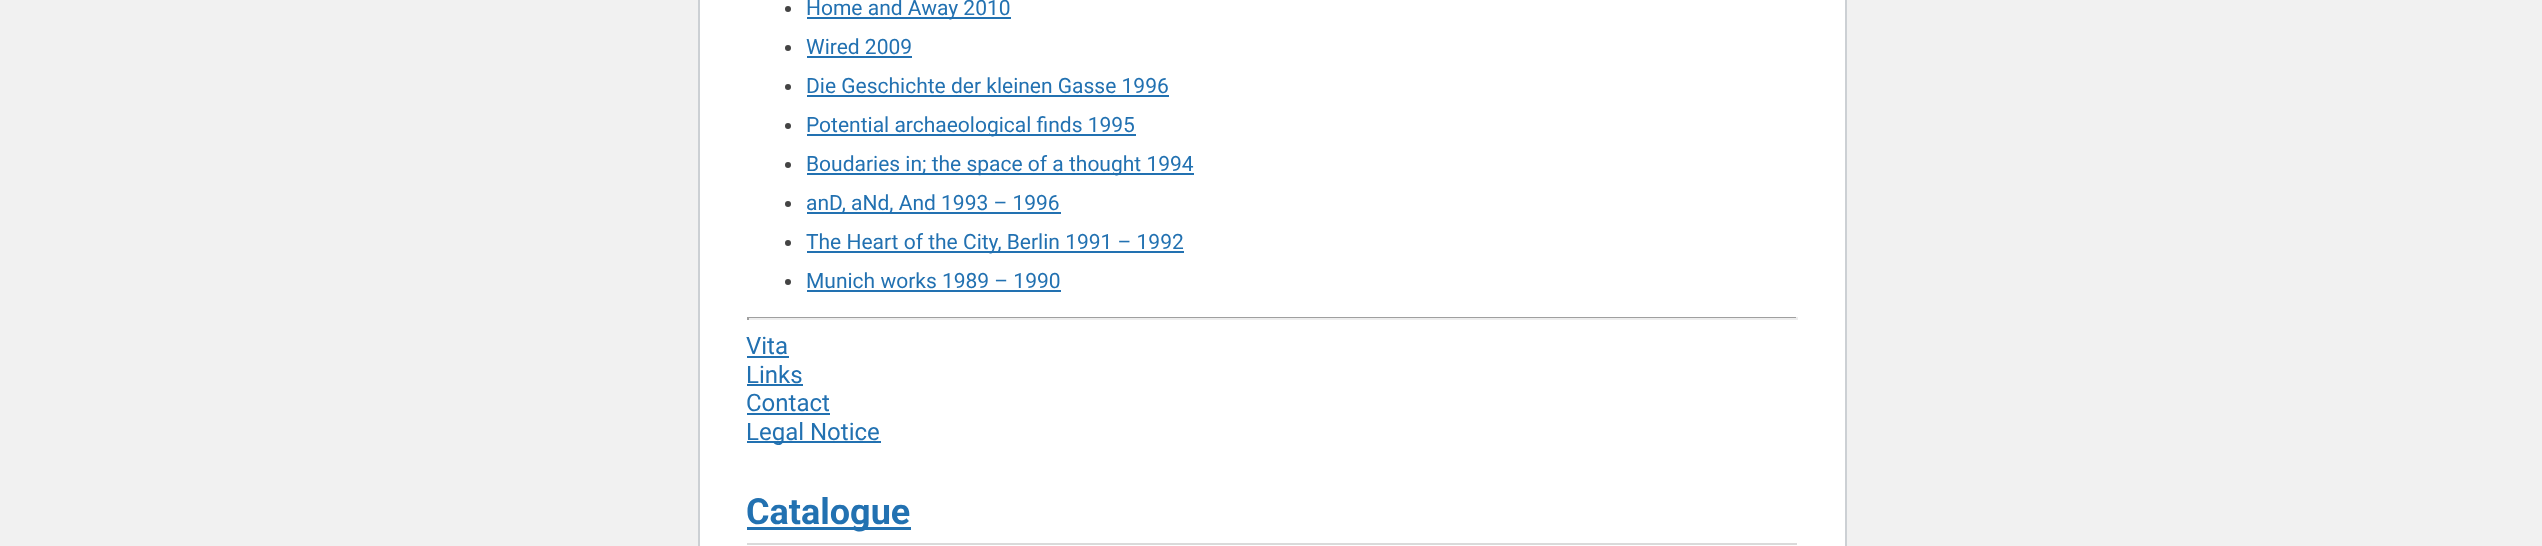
<svg xmlns="http://www.w3.org/2000/svg" width="2542" height="546">
<rect width="100%" height="100%" fill="#f1f1f1"/>
<rect x="699" y="-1" width="1147" height="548" fill="#fff" stroke="#ccd0d4" stroke-width="2"/>
<circle cx="788" cy="9" r="3" fill="#444"/>
<rect x="807" y="17" width="204" height="2" fill="#2271b1"/>
<text x="806" y="15" style="font-family:Roboto;font-size:21px;fill:#2271b1">Home and Away 2010</text>
<circle cx="788" cy="48" r="3" fill="#444"/>
<text x="806" y="54" style="font-family:Roboto;font-size:21px;fill:#2271b1">Wired 2009</text>
<rect x="807" y="56" width="105" height="2" fill="#2271b1"/>
<circle cx="788" cy="87" r="3" fill="#444"/>
<text x="806" y="93" style="font-family:Roboto;font-size:21px;fill:#2271b1">Die Geschichte der kleinen Gasse 1996</text>
<rect x="807" y="95" width="362" height="2" fill="#2271b1"/>
<circle cx="788" cy="126" r="3" fill="#444"/>
<rect x="807" y="134" width="329" height="2" fill="#2271b1"/>
<text x="806" y="132" style="font-family:Roboto;font-size:21px;fill:#2271b1">Potential archaeological finds 1995</text>
<circle cx="788" cy="165" r="3" fill="#444"/>
<rect x="807" y="173" width="387" height="2" fill="#2271b1"/>
<text x="806" y="171" style="font-family:Roboto;font-size:21px;fill:#2271b1">Boudaries in; the space of a thought 1994</text>
<circle cx="788" cy="204" r="3" fill="#444"/>
<rect x="807" y="212" width="254" height="2" fill="#2271b1"/>
<text x="806" y="210" style="font-family:Roboto;font-size:21px;fill:#2271b1">anD, aNd, And 1993 – 1996</text>
<circle cx="788" cy="243" r="3" fill="#444"/>
<rect x="807" y="251" width="377" height="2" fill="#2271b1"/>
<text x="806" y="249" style="font-family:Roboto;font-size:21px;fill:#2271b1">The Heart of the City, Berlin 1991 – 1992</text>
<circle cx="788" cy="282" r="3" fill="#444"/>
<text x="806" y="288" style="font-family:Roboto;font-size:21px;fill:#2271b1">Munich works 1989 – 1990</text>
<rect x="807" y="290" width="254" height="2" fill="#2271b1"/>
<rect x="747" y="317" width="1050" height="1" fill="#9f9f9f"/>
<rect x="1796" y="317" width="2" height="3" fill="#eee"/>
<rect x="747" y="318" width="1050" height="2" fill="#eee"/>
<rect x="747" y="317" width="2" height="3" fill="#9f9f9f"/>
<text x="746" y="354" style="font-family:Roboto;font-size:24px;fill:#2271b1">Vita</text>
<rect x="747" y="356" width="42" height="2" fill="#2271b1"/>
<text x="746" y="383" style="font-family:Roboto;font-size:24px;fill:#2271b1">Links</text>
<rect x="747" y="384" width="56" height="2" fill="#2271b1"/>
<text x="746" y="411" style="font-family:Roboto;font-size:24px;fill:#2271b1">Contact</text>
<rect x="747" y="413" width="83" height="2" fill="#2271b1"/>
<rect x="747" y="441" width="134" height="2" fill="#2271b1"/>
<text x="746" y="440" style="font-family:Roboto;font-size:24px;fill:#2271b1">Legal Notice</text>
<rect x="747" y="543" width="1050" height="2" fill="#dadada"/>
<rect x="747" y="527" width="164" height="3" fill="#2271b1"/>
<text x="746" y="524" style="font-family:Roboto;font-size:36px;font-weight:bold;fill:#2271b1">Catalogue</text>
</svg>
